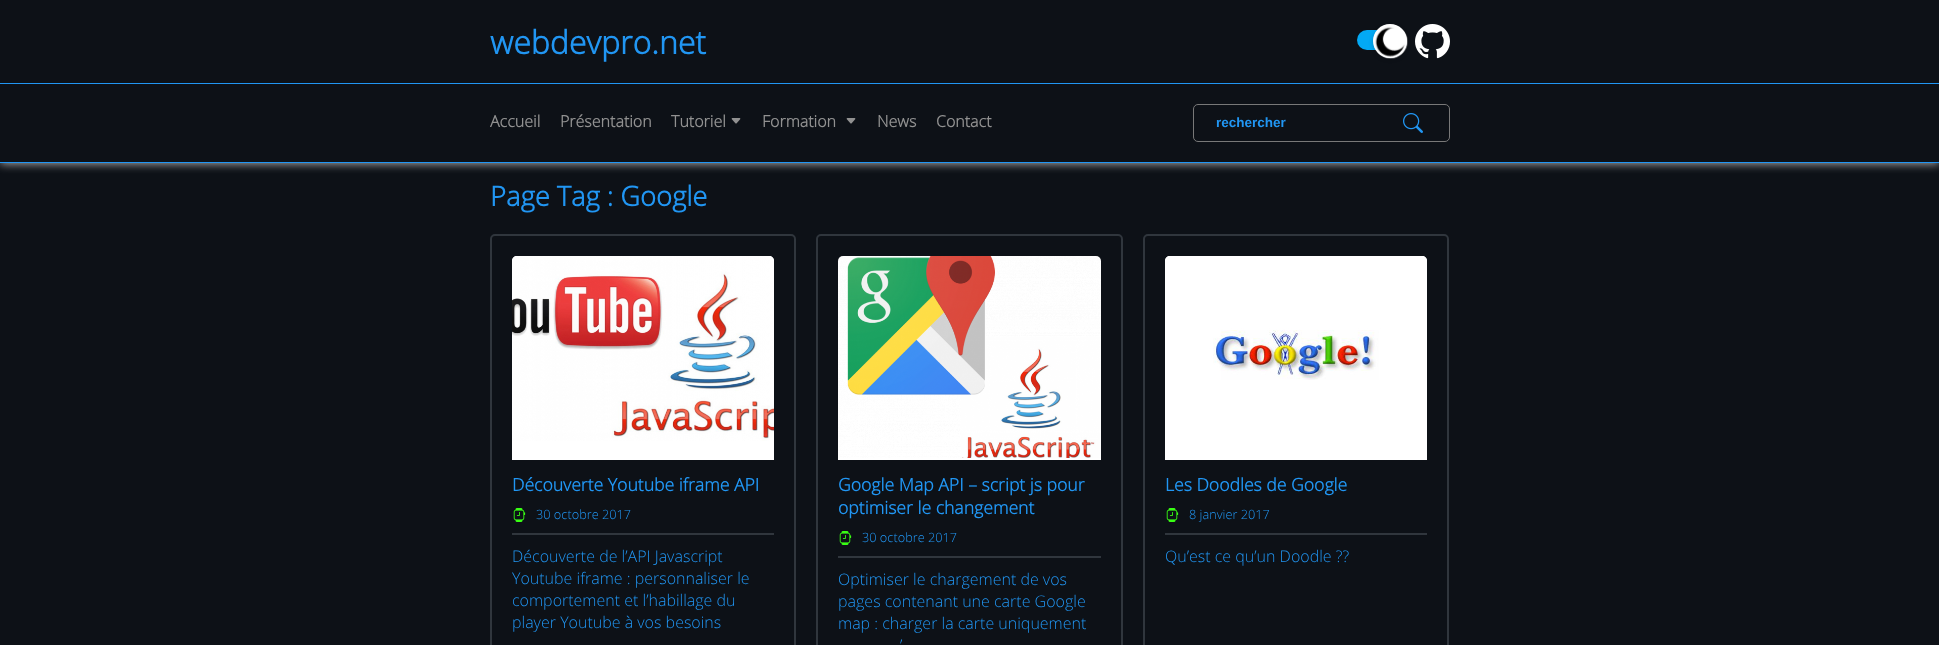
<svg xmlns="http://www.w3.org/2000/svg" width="1939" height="645">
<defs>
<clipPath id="clip1"><rect x="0" y="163" width="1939" height="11"/></clipPath>
</defs>
<rect width="100%" height="100%" fill="#0d1117"/>
<g clip-path="url(#clip1)">
<rect y="1" width="1939" height="163" fill="#ababab" filter="blur(5px)"/>
</g>
<rect y="83" width="1939" height="1" fill="#2196f3"/>
<text x="490" y="54" style="font-family:Open Sans;font-size:32px;font-weight:bold;fill:#2196f3">webdevpro.net</text>
<rect x="1357" y="30" width="40" height="20" rx="10" fill="#03a9f4"/>
<rect x="1373" y="26" width="34" height="33" rx="16.5" fill="#00000033" filter="blur(2px)"/>
<circle cx="1390" cy="41" r="17" fill="#fff"/>
<image x="1373" y="24" width="35" height="35" href="media/1.png"/>
<image x="1415" y="24" width="35" height="35" href="media/2.png"/>
<rect y="162" width="1939" height="1" fill="#2196f3"/>
<text x="490" y="127" style="font-family:Open Sans;font-size:16px;font-weight:bold;fill:#919191">Accueil</text>
<text x="560" y="127" style="font-family:Open Sans;font-size:16px;font-weight:bold;fill:#919191">Présentation</text>
<text x="671" y="127" style="font-family:Open Sans;font-size:16px;font-weight:bold;fill:#919191">Tutoriel</text>
<image x="731" y="118" width="10" height="6" href="media/3.png"/>
<text x="762" y="127" style="font-family:Open Sans;font-size:16px;font-weight:bold;fill:#919191">Formation</text>
<image x="846" y="118" width="10" height="6" href="media/3.png"/>
<text x="877" y="127" style="font-family:Open Sans;font-size:16px;font-weight:bold;fill:#919191">News</text>
<text x="936" y="127" style="font-family:Open Sans;font-size:16px;font-weight:bold;fill:#919191">Contact</text>
<rect x="1193.5" y="104.5" width="256" height="37" rx="4.5" fill="none" stroke="#787878"/>
<text x="1216" y="127" style="font-family:Liberation Sans;font-size:13.5px;font-weight:bold;fill:#2196f3">rechercher</text>
<image x="1403" y="113" width="20" height="20" href="media/4.png"/>
<text x="490" y="206" style="font-family:Open Sans;font-size:27.25px;font-weight:bold;fill:#2196f3">Page Tag : Google</text>
<rect x="491" y="235" width="304" height="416" rx="4" fill="none" stroke="#30363d" stroke-width="2"/>
<path d="M517 256h252c3 0 5 2 5 5v197h-262v-197c0-3 2-5 5-5z" fill="#fff"/>
<image x="512" y="256" width="262" height="185" href="media/5.png"/>
<rect x="512" y="458" width="262" height="2" fill="#fff"/>
<text x="512" y="491" style="font-family:Open Sans;font-size:17.6px;font-weight:bold;fill:#2196f3">Découverte Youtube iframe API</text>
<rect x="512" y="533" width="262" height="2" fill="#30363d"/>
<image x="513" y="508" width="13" height="14" href="media/6.png"/>
<text x="536" y="519" style="font-family:Open Sans;font-size:12.75px;font-weight:300;fill:#2196f3">30 octobre 2017</text>
<text x="512" y="562" style="font-family:Open Sans;font-size:16px;font-weight:300;fill:#2196f3">Découverte de l’API Javascript</text>
<text x="512" y="584" style="font-family:Open Sans;font-size:16px;font-weight:300;fill:#2196f3">Youtube iframe : personnaliser le</text>
<text x="512" y="606" style="font-family:Open Sans;font-size:16px;font-weight:300;fill:#2196f3">comportement et l’habillage du</text>
<text x="512" y="628" style="font-family:Open Sans;font-size:16px;font-weight:300;fill:#2196f3">player Youtube à vos besoins</text>
<rect x="817" y="235" width="305" height="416" rx="4" fill="none" stroke="#30363d" stroke-width="2"/>
<image x="838" y="256" width="263" height="202" href="media/7.png"/>
<rect x="838" y="458" width="263" height="2" fill="#fff"/>
<text x="838" y="491" style="font-family:Open Sans;font-size:17.6px;font-weight:bold;fill:#2196f3">Google Map API – script js pour</text>
<text x="838" y="514" style="font-family:Open Sans;font-size:17.6px;font-weight:bold;fill:#2196f3">optimiser le changement</text>
<rect x="838" y="556" width="263" height="2" fill="#30363d"/>
<image x="839" y="531" width="13" height="14" href="media/6.png"/>
<text x="862" y="542" style="font-family:Open Sans;font-size:12.75px;font-weight:300;fill:#2196f3">30 octobre 2017</text>
<text x="838" y="585" style="font-family:Open Sans;font-size:16px;font-weight:300;fill:#2196f3">Optimiser le chargement de vos</text>
<text x="838" y="607" style="font-family:Open Sans;font-size:16px;font-weight:300;fill:#2196f3">pages contenant une carte Google</text>
<text x="838" y="629" style="font-family:Open Sans;font-size:16px;font-weight:300;fill:#2196f3">map : charger la carte uniquement</text>
<text x="900" y="651" style="font-family:Open Sans;font-size:16px;font-weight:300;fill:#2196f3">’</text>
<rect x="1144" y="235" width="304" height="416" rx="4" fill="none" stroke="#30363d" stroke-width="2"/>
<path d="M1170 256h252c3 0 5 2 5 5v197h-262v-197c0-3 2-5 5-5z" fill="#fff"/>
<image x="1165" y="256" width="262" height="124" href="media/8.png"/>
<rect x="1165" y="458" width="262" height="2" fill="#fff"/>
<text x="1165" y="491" style="font-family:Open Sans;font-size:17.6px;font-weight:bold;fill:#2196f3">Les Doodles de Google</text>
<rect x="1165" y="533" width="262" height="2" fill="#30363d"/>
<image x="1166" y="508" width="13" height="14" href="media/6.png"/>
<text x="1189" y="519" style="font-family:Open Sans;font-size:12.75px;font-weight:300;fill:#2196f3">8 janvier 2017</text>
<text x="1165" y="562" style="font-family:Open Sans;font-size:16px;font-weight:300;fill:#2196f3">Qu’est ce qu’un Doodle ??</text>
</svg>
